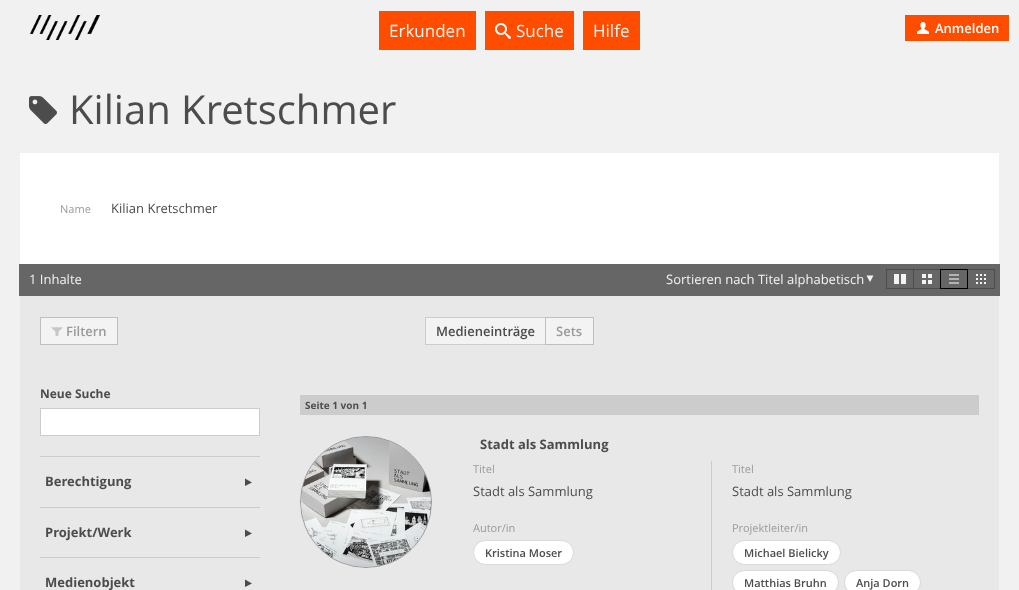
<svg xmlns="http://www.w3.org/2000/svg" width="1019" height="590">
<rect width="100%" height="100%" fill="#f1f1f1"/>
<image x="30" y="15" width="70" height="25" href="media/1.png"/>
<rect x="379" y="11" width="97" height="39" fill="#ff4d00"/>
<text x="389" y="37" style="font-family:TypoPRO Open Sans;font-size:17px;fill:#f3f3f3">Erkunden</text>
<rect x="485" y="11" width="89" height="39" fill="#ff4d00"/>
<image x="495" y="23" width="16" height="16" href="media/2.png"/>
<text x="516" y="37" style="font-family:TypoPRO Open Sans;font-size:17px;fill:#f3f3f3">Suche</text>
<rect x="583" y="11" width="57" height="39" fill="#ff4d00"/>
<text x="593" y="37" style="font-family:TypoPRO Open Sans;font-size:17px;fill:#f3f3f3">Hilfe</text>
<rect x="905" y="15" width="104" height="26" fill="#ff4d00"/>
<image x="917" y="22" width="12" height="12" href="media/3.png"/>
<text x="935" y="33" style="font-family:TypoPRO Open Sans;font-size:13px;font-weight:600;fill:#fff">Anmelden</text>
<image x="29" y="96" width="28" height="28" href="media/4.png"/>
<text x="69" y="124" style="font-family:TypoPRO Open Sans;font-size:40px;fill:#4c4c4c">Kilian Kretschmer</text>
<rect x="20" y="153" width="979" height="111" fill="#fff"/>
<text x="60" y="213" style="font-family:TypoPRO Open Sans;font-size:11px;fill:#9a9a9a">Name</text>
<text x="111" y="213" style="font-family:TypoPRO Open Sans;font-size:13px;fill:#4c4c4c">Kilian Kretschmer</text>
<rect x="20" y="296" width="979" height="294" fill="#e8e8e8"/>
<rect x="19" y="264" width="981" height="32" fill="#666"/>
<text x="29" y="284" style="font-family:TypoPRO Open Sans;font-size:13px;fill:#f3f3f3">1 Inhalte</text>
<text x="666" y="284" style="font-family:TypoPRO Open Sans;font-size:13px;fill:#f3f3f3">Sortieren nach Titel alphabetisch</text>
<path d="M873.5 275.5h-7l3.5 6.5z" fill="#f3f3f3"/>
<rect x="886.5" y="269.5" width="27" height="19" fill="none" stroke="#4c4c4c"/>
<image x="894" y="274" width="13" height="11" href="media/5.png"/>
<rect x="913.5" y="269.5" width="27" height="19" fill="none" stroke="#4c4c4c"/>
<image x="922" y="274" width="10" height="10" href="media/6.png"/>
<rect x="967.5" y="269.5" width="27" height="19" fill="none" stroke="#4c4c4c"/>
<rect x="940.5" y="269.5" width="27" height="19" fill="none" stroke="#000"/>
<image x="949" y="274" width="10" height="10" href="media/7.png"/>
<image x="976" y="274" width="10" height="10" href="media/8.png"/>
<rect x="40.5" y="317.5" width="77" height="27" fill="#f3f3f3" stroke="#bfbfbf"/>
<image x="51" y="327" width="12" height="10" href="media/9.png"/>
<text x="66" y="336" style="font-family:TypoPRO Open Sans;font-size:13px;font-weight:600;fill:#9a9a9a">Filtern</text>
<rect x="425.5" y="317.5" width="120" height="27" fill="#f3f3f3" stroke="#ccc"/>
<text x="436" y="336" style="font-family:TypoPRO Open Sans;font-size:13px;font-weight:600;fill:#4c4c4c">Medieneinträge</text>
<rect x="545.5" y="317.5" width="48" height="27" fill="#f3f3f3" stroke="#bfbfbf"/>
<text x="556" y="336" style="font-family:TypoPRO Open Sans;font-size:13px;font-weight:600;fill:#9a9a9a">Sets</text>
<rect x="40" y="456" width="220" height="1" fill="#ccc"/>
<text x="40" y="398" style="font-family:TypoPRO Open Sans;font-size:12px;font-weight:bold;fill:#4c4c4c">Neue Suche</text>
<rect x="40.5" y="408.5" width="219" height="27" fill="#fff" stroke="#ccc"/>
<rect x="40" y="507" width="220" height="1" fill="#ccc"/>
<text x="45" y="486" style="font-family:TypoPRO Open Sans;font-size:13px;font-weight:bold;fill:#4c4c4c">Berechtigung</text>
<path d="M245 478.5v7.5l7-3.5z" fill="#4c4c4c"/>
<rect x="40" y="557" width="220" height="1" fill="#ccc"/>
<text x="45" y="537" style="font-family:TypoPRO Open Sans;font-size:13px;font-weight:bold;fill:#4c4c4c">Projekt/Werk</text>
<path d="M245 529.5v7.5l7-3.5z" fill="#4c4c4c"/>
<text x="45" y="587" style="font-family:TypoPRO Open Sans;font-size:13px;font-weight:bold;fill:#4c4c4c">Medienobjekt</text>
<path d="M245 579.5v7.5l7-3.5z" fill="#4c4c4c"/>
<rect x="300" y="395" width="679" height="20" fill="#ccc"/>
<text x="305" y="409" style="font-family:TypoPRO Open Sans;font-size:10px;font-weight:bold;fill:#4c4c4c">Seite 1 von 1</text>
<text x="480" y="449" style="font-family:TypoPRO Open Sans;font-size:13px;font-weight:bold;fill:#4c4c4c">Stadt als Sammlung</text>
<circle cx="366" cy="502" r="65.5" fill="#fff" stroke="#9a9a9a"/>
<circle cx="366" cy="502" r="65" fill="#0101014d"/>
<image x="301" y="437" width="130" height="130" href="media/10.png"/>
<text x="473" y="473" style="font-family:TypoPRO Open Sans;font-size:11px;fill:#9a9a9a">Titel</text>
<text x="473" y="496" style="font-family:TypoPRO Open Sans;font-size:13px;fill:#4c4c4c">Stadt als Sammlung</text>
<text x="473" y="532" style="font-family:TypoPRO Open Sans;font-size:11px;fill:#9a9a9a">Autor/in</text>
<rect x="473.5" y="540.5" width="100" height="24" rx="12" fill="#fff" stroke="#d9d9d9"/>
<text x="485" y="557" style="font-family:TypoPRO Open Sans;font-size:11px;font-weight:600;fill:#4c4c4c">Kristina Moser</text>
<rect x="711" y="461" width="1" height="129" fill="#ccc"/>
<text x="732" y="473" style="font-family:TypoPRO Open Sans;font-size:11px;fill:#9a9a9a">Titel</text>
<text x="732" y="496" style="font-family:TypoPRO Open Sans;font-size:13px;fill:#4c4c4c">Stadt als Sammlung</text>
<text x="732" y="532" style="font-family:TypoPRO Open Sans;font-size:11px;fill:#9a9a9a">Projektleiter/in</text>
<rect x="732.5" y="540.5" width="108" height="24" rx="12" fill="#fff" stroke="#d9d9d9"/>
<text x="744" y="557" style="font-family:TypoPRO Open Sans;font-size:11px;font-weight:600;fill:#4c4c4c">Michael Bielicky</text>
<rect x="732.5" y="570.5" width="106" height="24" rx="12" fill="#fff" stroke="#d9d9d9"/>
<text x="744" y="587" style="font-family:TypoPRO Open Sans;font-size:11px;font-weight:600;fill:#4c4c4c">Matthias Bruhn</text>
<rect x="844.5" y="570.5" width="76" height="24" rx="12" fill="#fff" stroke="#d9d9d9"/>
<text x="856" y="587" style="font-family:TypoPRO Open Sans;font-size:11px;font-weight:600;fill:#4c4c4c">Anja Dorn</text>
</svg>
